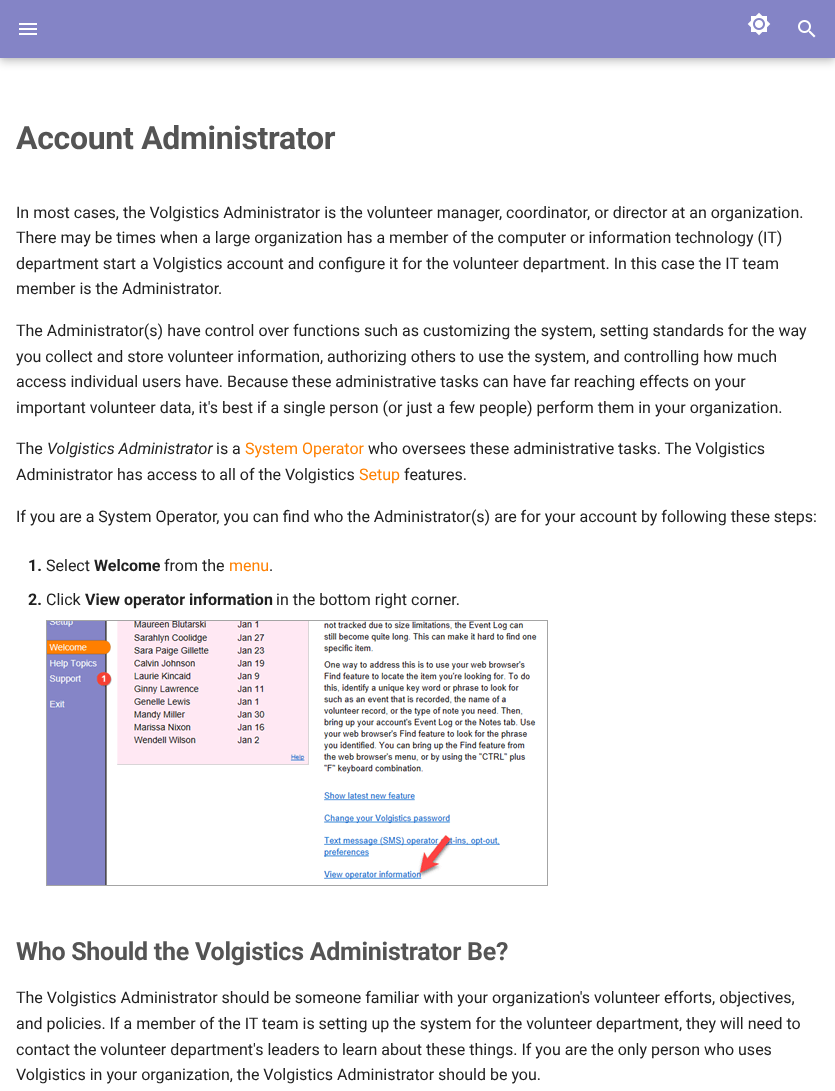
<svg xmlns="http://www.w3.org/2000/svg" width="835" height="1091">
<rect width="100%" height="100%" fill="#fff"/>
<rect y="4" width="835" height="58" fill="#00000033" filter="blur(4px)"/>
<rect width="835" height="58" fill="#0000001a" filter="blur(2px)"/>
<rect width="835" height="58" fill="#8484c6"/>
<image x="19" y="23" width="18" height="12" href="media/1.png"/>
<image x="747" y="12" width="24" height="24" href="media/2.png"/>
<image x="798" y="20" width="18" height="18" href="media/3.png"/>
<text x="16" y="149" style="font-family:Roboto;font-size:32px;font-weight:bold;letter-spacing:-0.3px;fill:#545454">Account Administrator</text>
<text x="16" y="218" style="font-family:Roboto;font-size:16px;fill:#212121">In most cases, the Volgistics Administrator is the volunteer manager, coordinator, or director at an organization.</text>
<text x="16" y="243" style="font-family:Roboto;font-size:16px;fill:#212121">There may be times when a large organization has a member of the computer or information technology (IT)</text>
<text x="16" y="269" style="font-family:Roboto;font-size:16px;fill:#212121">department start a Volgistics account and configure it for the volunteer department. In this case the IT team</text>
<text x="16" y="294" style="font-family:Roboto;font-size:16px;fill:#212121">member is the Administrator.</text>
<text x="16" y="336" style="font-family:Roboto;font-size:16px;fill:#212121">The Administrator(s) have control over functions such as customizing the system, setting standards for the way</text>
<text x="16" y="362" style="font-family:Roboto;font-size:16px;fill:#212121">you collect and store volunteer information, authorizing others to use the system, and controlling how much</text>
<text x="16" y="387" style="font-family:Roboto;font-size:16px;fill:#212121">access individual users have. Because these administrative tasks can have far reaching effects on your</text>
<text x="16" y="413" style="font-family:Roboto;font-size:16px;fill:#212121">important volunteer data, it's best if a single person (or just a few people) perform them in your organization.</text>
<text x="16" y="454" style="font-family:Roboto;font-size:16px;fill:#212121">The</text>
<text x="47" y="454" style="font-family:Roboto;font-size:16px;font-style:italic;fill:#212121">Volgistics Administrator</text>
<text x="216" y="454" style="font-family:Roboto;font-size:16px;fill:#212121">is a</text>
<text x="245" y="454" style="font-family:Roboto;font-size:16px;fill:#ff8000">System Operator</text>
<text x="368" y="454" style="font-family:Roboto;font-size:16px;fill:#212121">who oversees these administrative tasks. The Volgistics</text>
<text x="16" y="480" style="font-family:Roboto;font-size:16px;fill:#212121">Administrator has access to all of the Volgistics</text>
<text x="359" y="480" style="font-family:Roboto;font-size:16px;fill:#ff8000">Setup</text>
<text x="404" y="480" style="font-family:Roboto;font-size:16px;fill:#212121">features.</text>
<text x="16" y="522" style="font-family:Roboto;font-size:16px;fill:#212121">If you are a System Operator, you can find who the Administrator(s) are for your account by following these steps:</text>
<text x="28" y="571" style="font-family:Roboto;font-size:16px;font-weight:bold;fill:#212121">1.</text>
<text x="46" y="571" style="font-family:Roboto;font-size:16px;fill:#212121">Select</text>
<text x="94" y="571" style="font-family:Roboto;font-size:16px;font-weight:bold;fill:#212121">Welcome</text>
<text x="164" y="571" style="font-family:Roboto;font-size:16px;fill:#212121">from the</text>
<text x="229" y="571" style="font-family:Roboto;font-size:16px;fill:#ff8000">menu</text>
<text x="269" y="571" style="font-family:Roboto;font-size:16px;fill:#212121">.</text>
<text x="28" y="605" style="font-family:Roboto;font-size:16px;font-weight:bold;fill:#212121">2.</text>
<text x="46" y="605" style="font-family:Roboto;font-size:16px;fill:#212121">Click</text>
<text x="85" y="605" style="font-family:Roboto;font-size:16px;font-weight:bold;fill:#212121">View operator information</text>
<text x="276" y="605" style="font-family:Roboto;font-size:16px;fill:#212121">in the bottom right corner.</text>
<image x="46" y="620" width="502" height="266" href="media/4.png"/>
<text x="16" y="960" style="font-family:Roboto;font-size:25px;font-weight:bold;letter-spacing:-0.25px;fill:#545454">Who Should the Volgistics Administrator Be?</text>
<text x="16" y="1003" style="font-family:Roboto;font-size:16px;fill:#212121">The Volgistics Administrator should be someone familiar with your organization's volunteer efforts, objectives,</text>
<text x="16" y="1029" style="font-family:Roboto;font-size:16px;fill:#212121">and policies. If a member of the IT team is setting up the system for the volunteer department, they will need to</text>
<text x="16" y="1055" style="font-family:Roboto;font-size:16px;fill:#212121">contact the volunteer department's leaders to learn about these things. If you are the only person who uses</text>
<text x="16" y="1080" style="font-family:Roboto;font-size:16px;fill:#212121">Volgistics in your organization, the Volgistics Administrator should be you.</text>
</svg>
